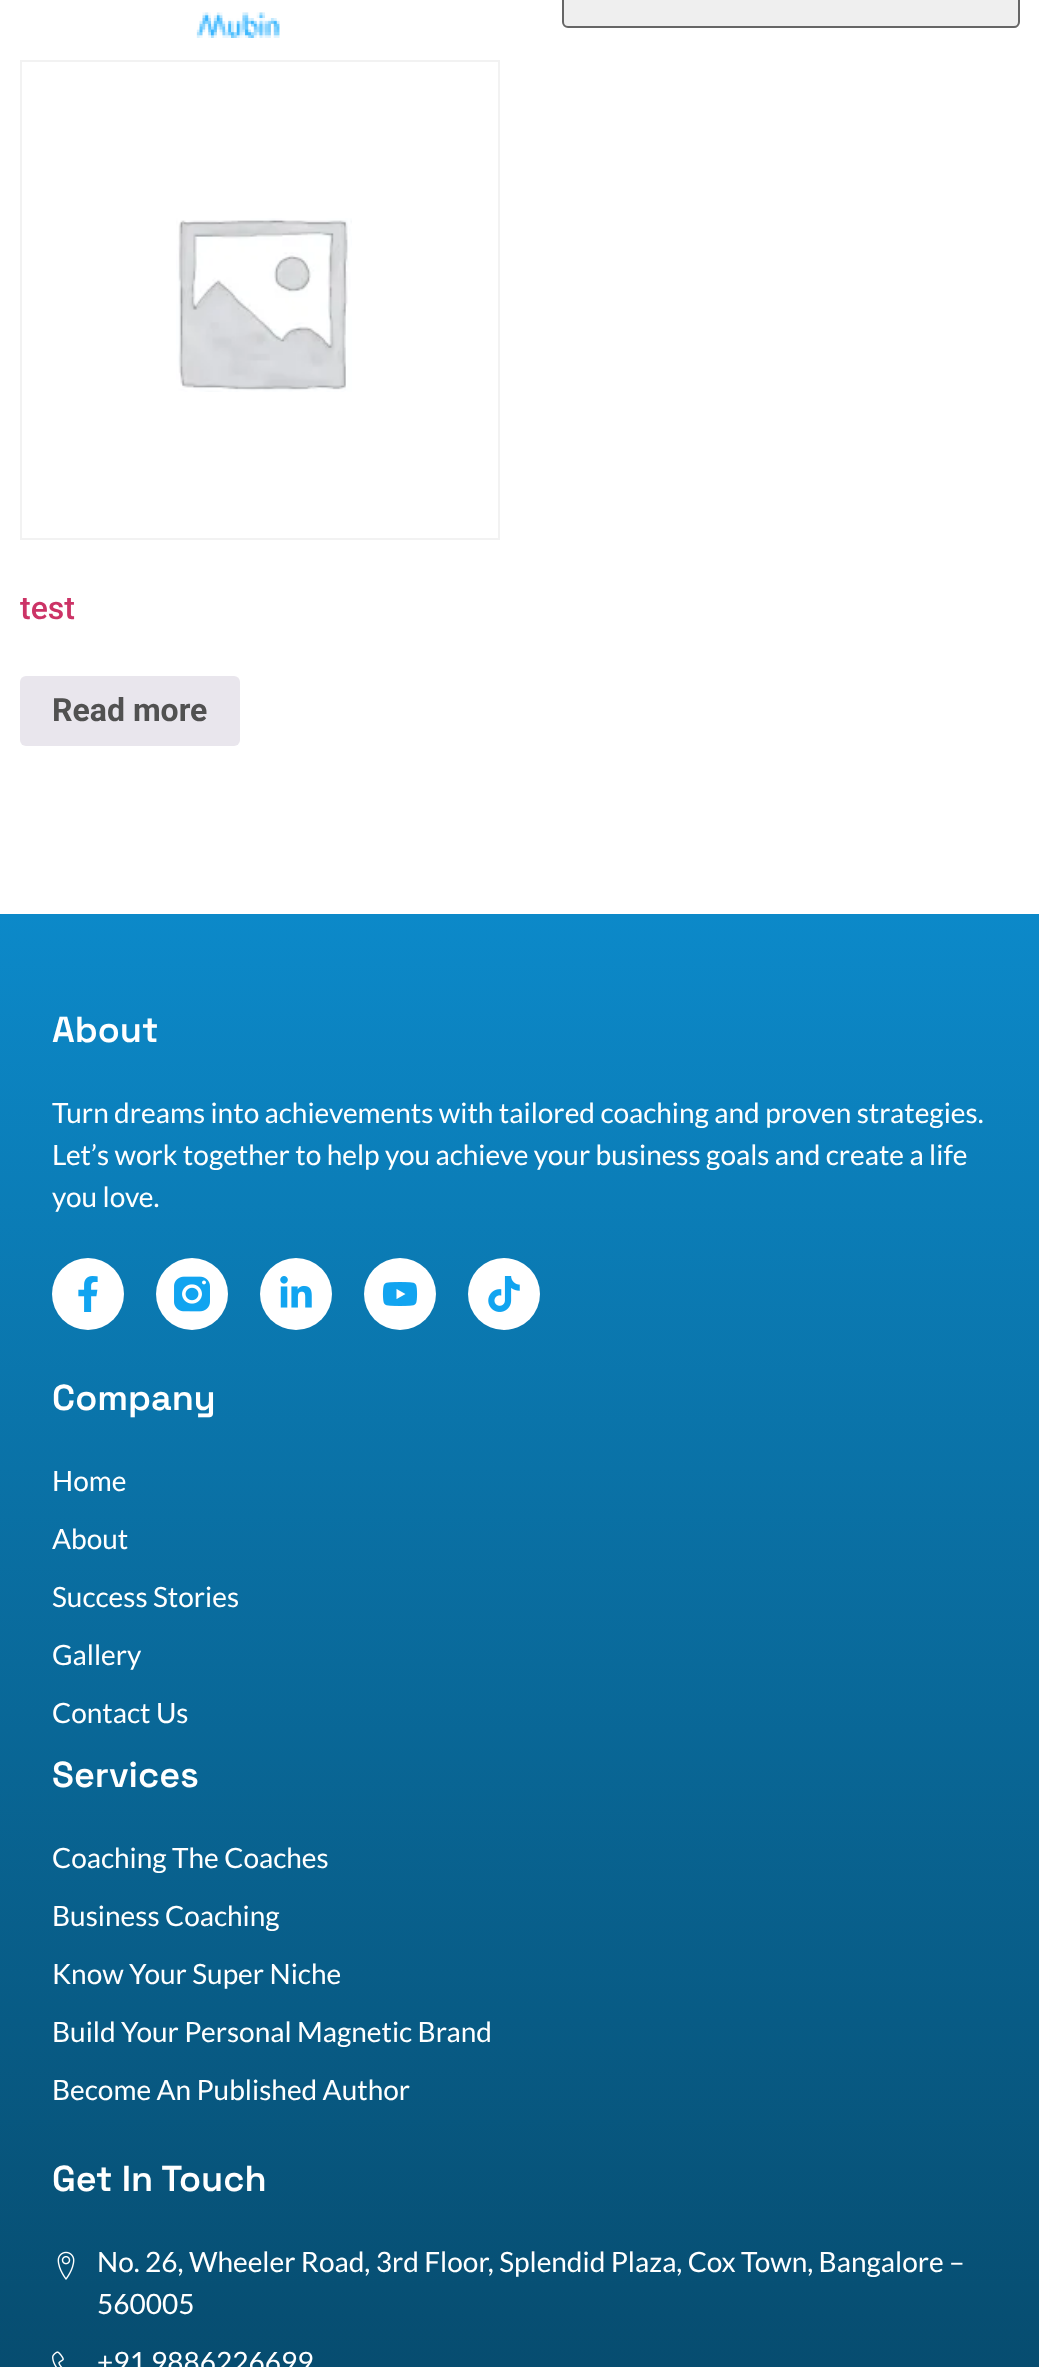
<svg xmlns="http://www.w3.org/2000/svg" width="1039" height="2367">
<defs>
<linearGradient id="g1" gradientUnits="userSpaceOnUse" x1="520" y1="914" x2="520" y2="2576"><stop offset="0" stop-color="#0c89c9"/><stop offset="1" stop-color="#064463"/></linearGradient>
</defs>
<rect width="100%" height="100%" fill="#fff"/>
<image x="196" y="12" width="84" height="26" href="media/1.png"/>
<rect x="563" y="-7" width="456" height="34" rx="5" fill="#efefef" stroke="#666" stroke-width="2"/>
<rect x="21" y="61" width="478" height="478" fill="none" stroke="#f2f2f2" stroke-width="2"/>
<image x="176" y="218" width="176" height="174" href="media/2.png"/>
<text x="20" y="619" style="font-family:Roboto;font-size:32px;font-weight:500;fill:#c36">test</text>
<rect x="20" y="676" width="220" height="70" rx="6" fill="#e9e6ed"/>
<text x="52" y="721" style="font-family:Roboto;font-size:32px;font-weight:bold;fill:#515151">Read more</text>
<rect y="914" width="1039" height="1453" fill="url(#g1)"/>
<text x="52" y="1042" style="font-family:Space Grotesk;font-size:36px;font-weight:600;fill:#fff">About</text>
<text x="52" y="1123" style="font-family:Lato;font-size:28px;fill:#fff">Turn dreams into achievements with tailored coaching and proven strategies.</text>
<text x="52" y="1165" style="font-family:Lato;font-size:28px;fill:#fff">Let’s work together to help you achieve your business goals and create a life</text>
<text x="52" y="1207" style="font-family:Lato;font-size:28px;fill:#fff">you love.</text>
<circle cx="88" cy="1294" r="36" fill="#fff"/>
<image x="78" y="1276" width="20" height="36" href="media/3.png"/>
<circle cx="192" cy="1294" r="36" fill="#fff"/>
<image x="174" y="1276" width="36" height="36" href="media/4.png"/>
<circle cx="296" cy="1294" r="36" fill="#fff"/>
<image x="280" y="1276" width="32" height="32" href="media/5.png"/>
<circle cx="400" cy="1294" r="36" fill="#fff"/>
<image x="382" y="1282" width="36" height="24" href="media/6.png"/>
<circle cx="504" cy="1294" r="36" fill="#fff"/>
<image x="488" y="1276" width="32" height="36" href="media/7.png"/>
<text x="52" y="1410" style="font-family:Space Grotesk;font-size:36px;font-weight:600;fill:#fff">Company</text>
<text x="52" y="1491" style="font-family:Lato;font-size:28px;fill:#fff">Home</text>
<text x="52" y="1549" style="font-family:Lato;font-size:28px;fill:#fff">About</text>
<text x="52" y="1607" style="font-family:Lato;font-size:28px;fill:#fff">Success Stories</text>
<text x="52" y="1665" style="font-family:Lato;font-size:28px;fill:#fff">Gallery</text>
<text x="52" y="1723" style="font-family:Lato;font-size:28px;fill:#fff">Contact Us</text>
<text x="52" y="1787" style="font-family:Space Grotesk;font-size:36px;font-weight:600;fill:#fff">Services</text>
<text x="52" y="1868" style="font-family:Lato;font-size:28px;fill:#fff">Coaching The Coaches</text>
<text x="52" y="1926" style="font-family:Lato;font-size:28px;fill:#fff">Business Coaching</text>
<text x="52" y="1984" style="font-family:Lato;font-size:28px;fill:#fff">Know Your Super Niche</text>
<text x="52" y="2042" style="font-family:Lato;font-size:28px;fill:#fff">Build Your Personal Magnetic Brand</text>
<text x="52" y="2100" style="font-family:Lato;font-size:28px;fill:#fff">Become An Published Author</text>
<text x="52" y="2191" style="font-family:Space Grotesk;font-size:36px;font-weight:600;fill:#fff">Get In Touch</text>
<image x="57" y="2251" width="18" height="29" href="media/8.png"/>
<text x="97" y="2272" style="font-family:Lato;font-size:28px;fill:#fff">No. 26, Wheeler Road, 3rd Floor, Splendid Plaza, Cox Town, Bangalore –</text>
<text x="97" y="2314" style="font-family:Lato;font-size:28px;fill:#fff">560005</text>
<image x="52" y="2351" width="12" height="16" href="media/9.png"/>
<text x="97" y="2372" style="font-family:Lato;font-size:28px;fill:#fff">+91 9886226699</text>
</svg>
